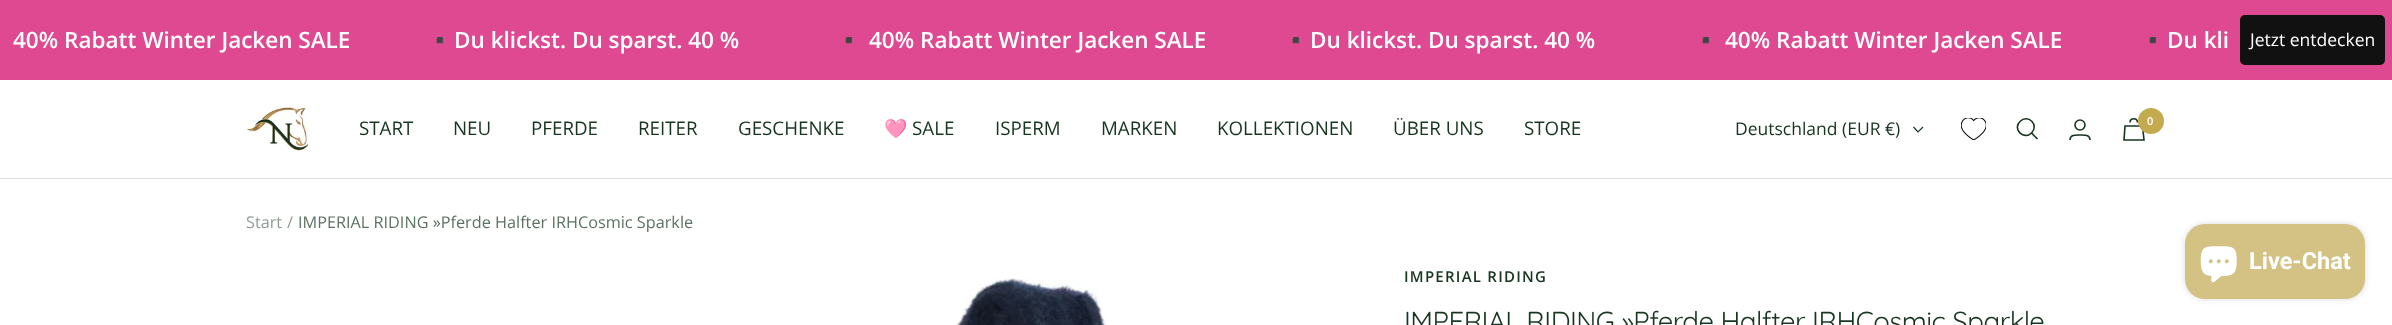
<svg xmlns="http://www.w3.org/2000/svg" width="2392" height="325">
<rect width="100%" height="100%" fill="#fff"/>
<rect width="2392" height="80" fill="#de4991"/>
<text x="13" y="48" style="font-family:Open Sans;font-size:22.5px;font-weight:600;fill:#fff">40% Rabatt Winter Jacken SALE</text>
<text x="426" y="48" style="font-family:Noto Color Emoji;font-size:22.5px;font-weight:bold;fill:#fff">▪️</text>
<text x="454" y="48" style="font-family:Open Sans;font-size:22.5px;font-weight:600;fill:#fff">Du klickst. Du sparst. 40 %</text>
<text x="835" y="48" style="font-family:Noto Color Emoji;font-size:22.5px;font-weight:bold;fill:#fff">▪️</text>
<text x="869" y="48" style="font-family:Open Sans;font-size:22.5px;font-weight:600;fill:#fff">40% Rabatt Winter Jacken SALE</text>
<text x="1282" y="48" style="font-family:Noto Color Emoji;font-size:22.5px;font-weight:bold;fill:#fff">▪️</text>
<text x="1310" y="48" style="font-family:Open Sans;font-size:22.5px;font-weight:600;fill:#fff">Du klickst. Du sparst. 40 %</text>
<text x="1692" y="48" style="font-family:Noto Color Emoji;font-size:22.5px;font-weight:bold;fill:#fff">▪️</text>
<text x="1725" y="48" style="font-family:Open Sans;font-size:22.5px;font-weight:600;fill:#fff">40% Rabatt Winter Jacken SALE</text>
<text x="2139" y="48" style="font-family:Noto Color Emoji;font-size:22.5px;font-weight:bold;fill:#fff">▪️</text>
<text x="2167" y="48" style="font-family:Open Sans;font-size:22.5px;font-weight:600;fill:#fff">Du kli</text>
<rect x="2240" y="15" width="145" height="50" rx="5" fill="#111"/>
<text x="2250" y="46" style="font-family:Open Sans;font-size:17.5px;fill:#fff">Jetzt entdecken</text>
<path d="M0 178v1h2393v-98h-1v97z" fill="#dce1de"/>
<image x="247" y="106" width="62" height="45" href="media/1.png"/>
<text x="359" y="135" style="font-family:Open Sans;font-size:18.75px;fill:#173520">START</text>
<text x="453" y="135" style="font-family:Open Sans;font-size:18.75px;fill:#173520">NEU</text>
<text x="531" y="135" style="font-family:Open Sans;font-size:18.75px;fill:#173520">PFERDE</text>
<text x="638" y="135" style="font-family:Open Sans;font-size:18.75px;fill:#173520">REITER</text>
<text x="738" y="135" style="font-family:Open Sans;font-size:18.75px;fill:#173520">GESCHENKE</text>
<text x="884" y="135" style="font-family:Noto Color Emoji;font-size:18.75px;fill:#173520">🩷</text>
<text x="912" y="135" style="font-family:Open Sans;font-size:18.75px;fill:#173520">SALE</text>
<text x="995" y="135" style="font-family:Open Sans;font-size:18.75px;fill:#173520">ISPERM</text>
<text x="1101" y="135" style="font-family:Open Sans;font-size:18.75px;fill:#173520">MARKEN</text>
<text x="1217" y="135" style="font-family:Open Sans;font-size:18.75px;fill:#173520">KOLLEKTIONEN</text>
<text x="1393" y="135" style="font-family:Open Sans;font-size:18.75px;fill:#173520">ÜBER UNS</text>
<text x="1524" y="135" style="font-family:Open Sans;font-size:18.75px;fill:#173520">STORE</text>
<text x="1735" y="135" style="font-family:Open Sans;font-size:17.5px;fill:#173520">Deutschland (EUR €)</text>
<path d="M1913.5 127l4.5 5l5-5" fill="none" stroke="#173520" stroke-width="1.2"/>
<image x="1961" y="118" width="25" height="22" href="media/2.png"/>
<path d="M2031.5 133c8-8-3.5-19.5-11.5-11.5c-8 7.5 4 19 11.5 11.5zm0 0l6 6" fill="none" stroke="#173520" stroke-width="1.6"/>
<circle cx="2080" cy="125" r="5" fill="none" stroke="#173520" stroke-width="1.6"/>
<path d="M2070 140c0-5.5 6-5 10-5c4 0 10-.5 10 5" fill="none" stroke="#173520" stroke-width="1.6"/>
<path d="M2125 126h17.5l1.5 14h-20zm12.5-3.5c0-5-7.5-5-7.5 0" fill="none" stroke="#173520" stroke-width="1.6"/>
<circle cx="2151" cy="121" r="13" fill="#c4aa4f"/>
<text x="2147" y="125" style="font-family:Open Sans;font-size:11px;font-weight:600;fill:#fff">0</text>
<text x="246" y="228" style="font-family:Open Sans;font-size:16.25px;fill:#8e9c92">Start</text>
<text x="287" y="228" style="font-family:Open Sans;font-size:16.25px;fill:#8e9c92">/</text>
<text x="298" y="228" style="font-family:Open Sans;font-size:16.25px;fill:#5d7263">IMPERIAL RIDING »Pferde Halfter IRHCosmic Sparkle</text>
<image x="955" y="278" width="151" height="47" href="media/3.png"/>
<text x="1404" y="282" style="font-family:Open Sans;font-size:15px;font-weight:600;letter-spacing:1.25px;fill:#173520">IMPERIAL RIDING</text>
<text x="1404" y="331" style="font-family:Quicksand;font-size:27.5px;letter-spacing:-0.5px;fill:#173520">IMPERIAL RIDING »Pferde Halfter IRHCosmic Sparkle</text>
<rect x="2185" y="224" width="180" height="75" rx="20" fill="#00000026" filter="blur(3px)"/>
<rect x="2185" y="224" width="180" height="75" rx="20" fill="#d4c285"/>
<image x="2200" y="246" width="37" height="37" href="media/4.png"/>
<text x="2249" y="269" style="font-family:Roboto;font-size:23.5px;font-weight:bold;fill:#fff">Live-Chat</text>
</svg>
